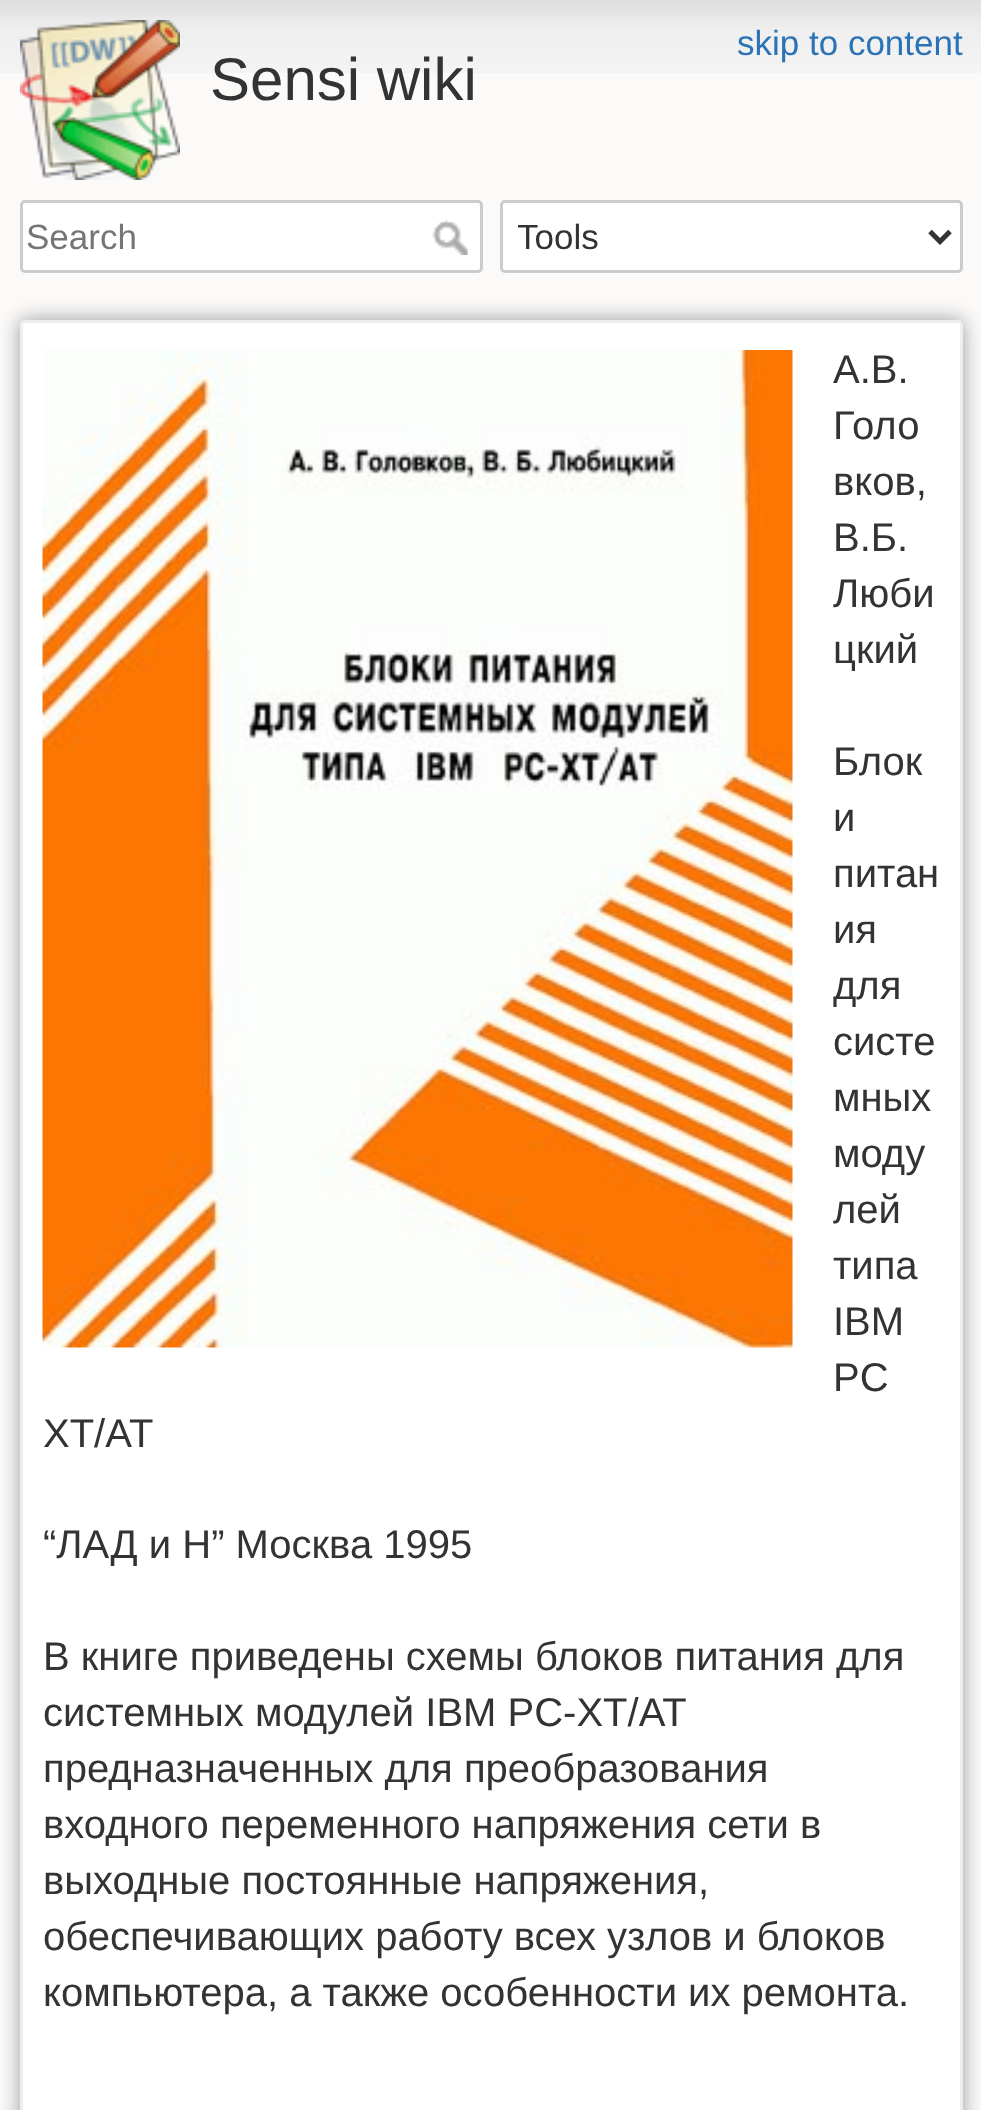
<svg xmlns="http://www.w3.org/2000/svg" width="981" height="2110">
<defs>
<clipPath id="clip1"><rect x="518" y="215" width="400" height="45"/></clipPath>
</defs>
<rect width="100%" height="100%" fill="#fbfaf9"/>
<image x="0" y="0" width="981" height="73" href="media/1.png"/>
<text x="737" y="55" style="font-family:Liberation Sans;font-size:35px;fill:#2b73b7">skip to content</text>
<image x="20" y="20" width="160" height="160" href="media/2.png"/>
<text x="210" y="100" style="font-family:Liberation Sans;font-size:60px;fill:#333">Sensi wiki</text>
<rect x="21.5" y="201.5" width="460" height="70" rx="3.5" fill="#fff" stroke="#ccc" stroke-width="3"/>
<text x="26" y="249" style="font-family:Liberation Sans;font-size:35px;fill:#757575">Search</text>
<image x="432" y="220" width="36" height="35" href="media/3.png"/>
<rect x="501.5" y="201.5" width="460" height="70" rx="3.5" fill="#fff" stroke="#ccc" stroke-width="3"/>
<path d="M930 231.5l10 10l10-10" fill="none" stroke="#333" stroke-width="5"/>
<g clip-path="url(#clip1)">
<text x="517" y="249" style="font-family:Liberation Sans;font-size:35px;fill:#333">Tools</text>
</g>
<rect x="20" y="320" width="943" height="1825" rx="5" fill="#999" filter="blur(10px)"/>
<rect x="21.5" y="321.5" width="940" height="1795" rx="3.5" fill="#fff" stroke="#eee" stroke-width="3"/>
<image x="42" y="350" width="751" height="998" href="media/4.png"/>
<text x="833" y="383" style="font-family:Liberation Sans;font-size:40px;fill:#333">А.В.</text>
<text x="833" y="439" style="font-family:Liberation Sans;font-size:40px;fill:#333">Голо</text>
<text x="833" y="495" style="font-family:Liberation Sans;font-size:40px;fill:#333">вков,</text>
<text x="833" y="551" style="font-family:Liberation Sans;font-size:40px;fill:#333">В.Б.</text>
<text x="833" y="607" style="font-family:Liberation Sans;font-size:40px;fill:#333">Люби</text>
<text x="833" y="663" style="font-family:Liberation Sans;font-size:40px;fill:#333">цкий</text>
<text x="833" y="775" style="font-family:Liberation Sans;font-size:40px;fill:#333">Блок</text>
<text x="833" y="831" style="font-family:Liberation Sans;font-size:40px;fill:#333">и</text>
<text x="833" y="887" style="font-family:Liberation Sans;font-size:40px;fill:#333">питан</text>
<text x="833" y="943" style="font-family:Liberation Sans;font-size:40px;fill:#333">ия</text>
<text x="833" y="999" style="font-family:Liberation Sans;font-size:40px;fill:#333">для</text>
<text x="833" y="1055" style="font-family:Liberation Sans;font-size:40px;fill:#333">систе</text>
<text x="833" y="1111" style="font-family:Liberation Sans;font-size:40px;fill:#333">мных</text>
<text x="833" y="1167" style="font-family:Liberation Sans;font-size:40px;fill:#333">моду</text>
<text x="833" y="1223" style="font-family:Liberation Sans;font-size:40px;fill:#333">лей</text>
<text x="833" y="1279" style="font-family:Liberation Sans;font-size:40px;fill:#333">типа</text>
<text x="833" y="1335" style="font-family:Liberation Sans;font-size:40px;fill:#333">IBM</text>
<text x="833" y="1391" style="font-family:Liberation Sans;font-size:40px;fill:#333">PC</text>
<text x="43" y="1447" style="font-family:Liberation Sans;font-size:40px;fill:#333">XT/AT</text>
<text x="43" y="1558" style="font-family:Liberation Sans;font-size:40px;fill:#333">“ЛАД и Н” Москва 1995</text>
<text x="43" y="1670" style="font-family:Liberation Sans;font-size:40px;fill:#333">В книге приведены схемы блоков питания для</text>
<text x="43" y="1726" style="font-family:Liberation Sans;font-size:40px;fill:#333">системных модулей IBM PC-XT/AT</text>
<text x="43" y="1782" style="font-family:Liberation Sans;font-size:40px;fill:#333">предназначенных для преобразования</text>
<text x="43" y="1838" style="font-family:Liberation Sans;font-size:40px;fill:#333">входного переменного напряжения сети в</text>
<text x="43" y="1894" style="font-family:Liberation Sans;font-size:40px;fill:#333">выходные постоянные напряжения,</text>
<text x="43" y="1950" style="font-family:Liberation Sans;font-size:40px;fill:#333">обеспечивающих работу всех узлов и блоков</text>
<text x="43" y="2006" style="font-family:Liberation Sans;font-size:40px;fill:#333">компьютера, а также особенности их ремонта.</text>
</svg>
